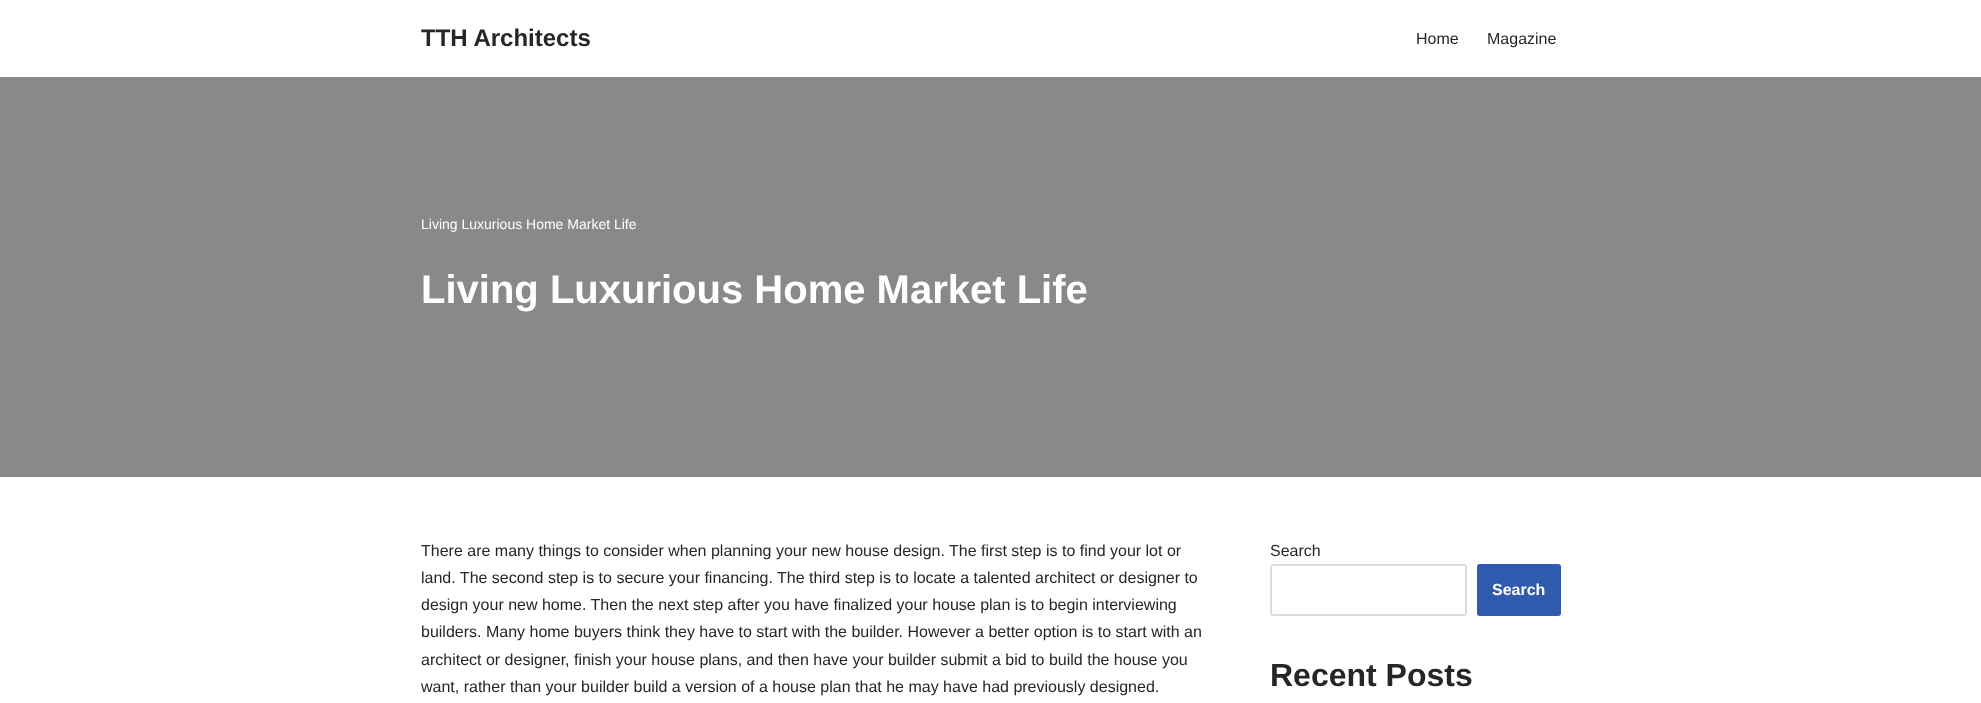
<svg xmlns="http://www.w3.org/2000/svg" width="1981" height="703">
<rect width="100%" height="100%" fill="#fff"/>
<rect y="77" width="1981" height="400" fill="#898989"/>
<text x="421" y="46" style="font-family:Liberation Sans;font-size:24px;font-weight:bold;fill:#272626">TTH Architects</text>
<text x="1416" y="44" style="font-family:Liberation Sans;font-size:16px;fill:#272626">Home</text>
<text x="1487" y="44" style="font-family:Liberation Sans;font-size:16px;fill:#272626">Magazine</text>
<text x="421" y="229" style="font-family:Liberation Sans;font-size:14px;fill:#fff">Living Luxurious Home Market Life</text>
<text x="421" y="303" style="font-family:Liberation Sans;font-size:40px;font-weight:bold;fill:#fff">Living Luxurious Home Market Life</text>
<text x="421" y="556" style="font-family:Liberation Sans;font-size:16px;fill:#272626">There are many things to consider when planning your new house design. The first step is to find your lot or</text>
<text x="421" y="583" style="font-family:Liberation Sans;font-size:16px;fill:#272626">land. The second step is to secure your financing. The third step is to locate a talented architect or designer to</text>
<text x="421" y="610" style="font-family:Liberation Sans;font-size:16px;fill:#272626">design your new home. Then the next step after you have finalized your house plan is to begin interviewing</text>
<text x="421" y="637" style="font-family:Liberation Sans;font-size:16px;fill:#272626">builders. Many home buyers think they have to start with the builder. However a better option is to start with an</text>
<text x="421" y="665" style="font-family:Liberation Sans;font-size:16px;fill:#272626">architect or designer, finish your house plans, and then have your builder submit a bid to build the house you</text>
<text x="421" y="692" style="font-family:Liberation Sans;font-size:16px;fill:#272626">want, rather than your builder build a version of a house plan that he may have had previously designed.</text>
<text x="1270" y="556" style="font-family:Liberation Sans;font-size:16px;fill:#272626">Search</text>
<rect x="1271" y="565" width="195" height="50" rx="2" fill="none" stroke="#ddd" stroke-width="2"/>
<rect x="1477" y="564" width="84" height="52" rx="3" fill="#2f5aae"/>
<text x="1492" y="595" style="font-family:Liberation Sans;font-size:16px;font-weight:bold;fill:#fff">Search</text>
<text x="1270" y="686" style="font-family:Liberation Sans;font-size:32px;font-weight:bold;fill:#272626">Recent Posts</text>
</svg>
